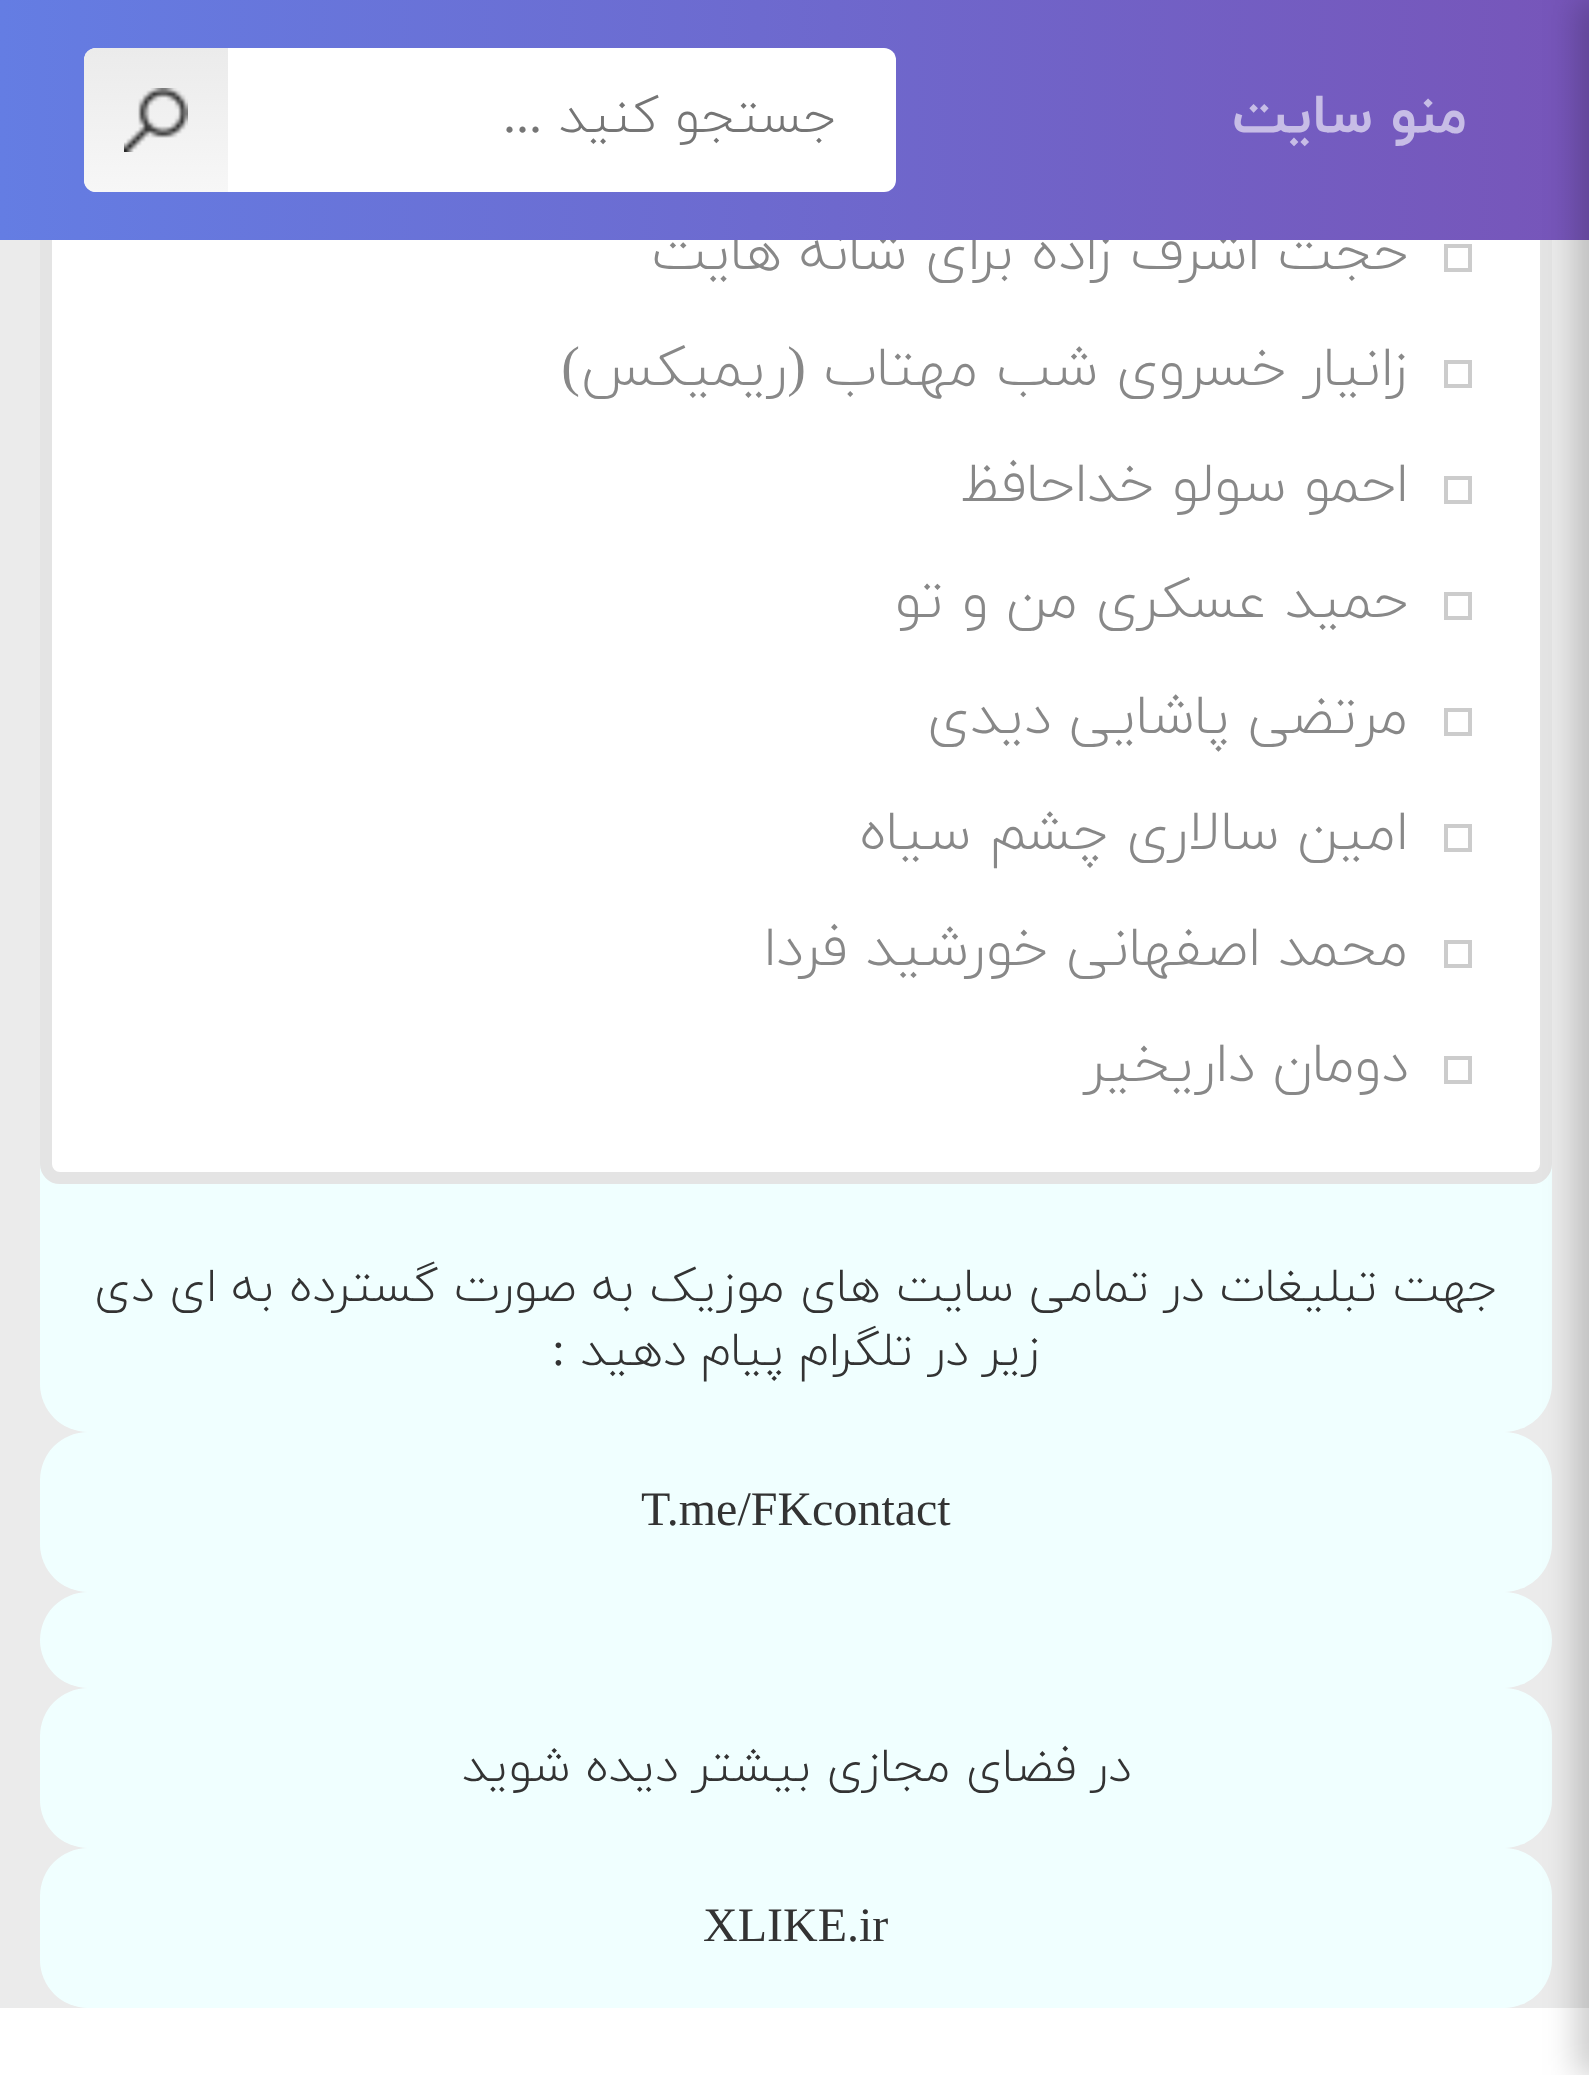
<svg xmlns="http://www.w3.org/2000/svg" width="1589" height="2075">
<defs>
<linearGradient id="g1" gradientUnits="userSpaceOnUse" x1="0" y1="120" x2="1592" y2="120"><stop offset="0" stop-color="#647de3"/><stop offset="1" stop-color="#7755b9"/></linearGradient>
<linearGradient id="g2" gradientUnits="userSpaceOnUse" x1="156" y1="48" x2="156" y2="192"><stop offset="0" stop-color="#ebebeb"/><stop offset="1" stop-color="#f7f7f7"/></linearGradient>
</defs>
<rect width="100%" height="100%" fill="#ebebeb"/>
<rect x="40" y="-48" width="1512" height="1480" rx="48" fill="#f0ffff"/>
<rect x="46" y="-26" width="1500" height="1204" rx="14" fill="#fff" stroke="#e4e4e4" stroke-width="12"/>
<text x="1408" y="269" style="font-family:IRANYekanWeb;font-size:56px;font-weight:300;direction:rtl;fill:#888">حجت اشرف زاده برای شانه هایت</text>
<rect width="1589" height="240" fill="url(#g1)"/>
<rect x="40" y="1432" width="1512" height="160" rx="48" fill="#f0ffff"/>
<rect x="40" y="1592" width="1512" height="96" rx="48" fill="#f0ffff"/>
<rect x="40" y="1688" width="1512" height="160" rx="48" fill="#f0ffff"/>
<rect x="40" y="1848" width="1512" height="160" rx="48" fill="#f0ffff"/>
<rect y="2008" width="1589" height="67" fill="#fff"/>
<rect x="1576" width="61" height="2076" fill="#00000033" filter="blur(16px)"/>
<text x="1467" y="132" style="font-family:IRANYekanWeb;font-size:56px;font-weight:bold;direction:rtl;fill:#c7bde6">منو سایت</text>
<rect x="84" y="48" width="812" height="144" rx="12" fill="#fff"/>
<text x="837" y="132" style="font-family:IRANYekanWeb;font-size:52px;font-weight:300;direction:rtl;fill:#757575">جستجو کنید</text>
<text x="542" y="132" style="font-family:Liberation Serif;font-size:52px;direction:rtl;fill:#757575">...</text>
<path d="M96 48h132v144h-132c-6.5 0-12-5.5-12-12v-120c0-6.5 5.5-12 12-12z" fill="url(#g2)"/>
<image x="124" y="88" width="64" height="64" href="media/1.png"/>
<rect x="1446" y="246" width="24" height="24" fill="none" stroke="#ccc" stroke-width="4"/>
<rect x="1446" y="362" width="24" height="24" fill="none" stroke="#ccc" stroke-width="4"/>
<text x="1408" y="385" style="font-family:IRANYekanWeb;font-size:56px;font-weight:300;direction:rtl;fill:#888">زانیار خسروی شب مهتاب</text>
<text x="806" y="385" style="font-family:Liberation Serif;font-size:56px;direction:rtl;fill:#888">(</text>
<text x="787" y="385" style="font-family:IRANYekanWeb;font-size:56px;font-weight:300;direction:rtl;fill:#888">ریمیکس</text>
<text x="580" y="385" style="font-family:Liberation Serif;font-size:56px;direction:rtl;fill:#888">)</text>
<rect x="1446" y="478" width="24" height="24" fill="none" stroke="#ccc" stroke-width="4"/>
<text x="1408" y="501" style="font-family:IRANYekanWeb;font-size:56px;font-weight:300;direction:rtl;fill:#888">احمو سولو خداحافظ</text>
<rect x="1446" y="594" width="24" height="24" fill="none" stroke="#ccc" stroke-width="4"/>
<text x="1408" y="617" style="font-family:IRANYekanWeb;font-size:56px;font-weight:300;direction:rtl;fill:#888">حمید عسکری من و تو</text>
<rect x="1446" y="710" width="24" height="24" fill="none" stroke="#ccc" stroke-width="4"/>
<text x="1408" y="733" style="font-family:IRANYekanWeb;font-size:56px;font-weight:300;direction:rtl;fill:#888">مرتضی پاشایی دیدی</text>
<rect x="1446" y="826" width="24" height="24" fill="none" stroke="#ccc" stroke-width="4"/>
<text x="1408" y="849" style="font-family:IRANYekanWeb;font-size:56px;font-weight:300;direction:rtl;fill:#888">امین سالاری چشم سیاه</text>
<rect x="1446" y="942" width="24" height="24" fill="none" stroke="#ccc" stroke-width="4"/>
<text x="1408" y="965" style="font-family:IRANYekanWeb;font-size:56px;font-weight:300;direction:rtl;fill:#888">محمد اصفهانی خورشید فردا</text>
<rect x="1446" y="1058" width="24" height="24" fill="none" stroke="#ccc" stroke-width="4"/>
<text x="1408" y="1081" style="font-family:IRANYekanWeb;font-size:56px;font-weight:300;direction:rtl;fill:#888">دومان داریخیر</text>
<text x="1498" y="1301" style="font-family:IRANYekanWeb;font-size:48px;font-weight:300;direction:rtl;fill:#333">جهت</text>
<text x="1378" y="1301" style="font-family:IRANYekanWeb;font-size:48px;font-weight:300;direction:rtl;fill:#333">تبلیغات در تمامی سایت های موزیک به صورت گسترده به ای دی</text>
<text x="1040" y="1365" style="font-family:IRANYekanWeb;font-size:48px;font-weight:300;direction:rtl;fill:#333">زیر در تلگرام پیام دهید</text>
<text x="565" y="1365" style="font-family:Liberation Serif;font-size:48px;direction:rtl;fill:#333">:</text>
<text x="641" y="1525" style="font-family:Liberation Serif;font-size:48px;fill:#333">T.me/FKcontact</text>
<text x="1131" y="1781" style="font-family:IRANYekanWeb;font-size:48px;font-weight:300;direction:rtl;fill:#333">در فضای مجازی بیشتر دیده شوید</text>
<text x="703" y="1941" style="font-family:Liberation Serif;font-size:48px;fill:#333">XLIKE.ir</text>
</svg>
